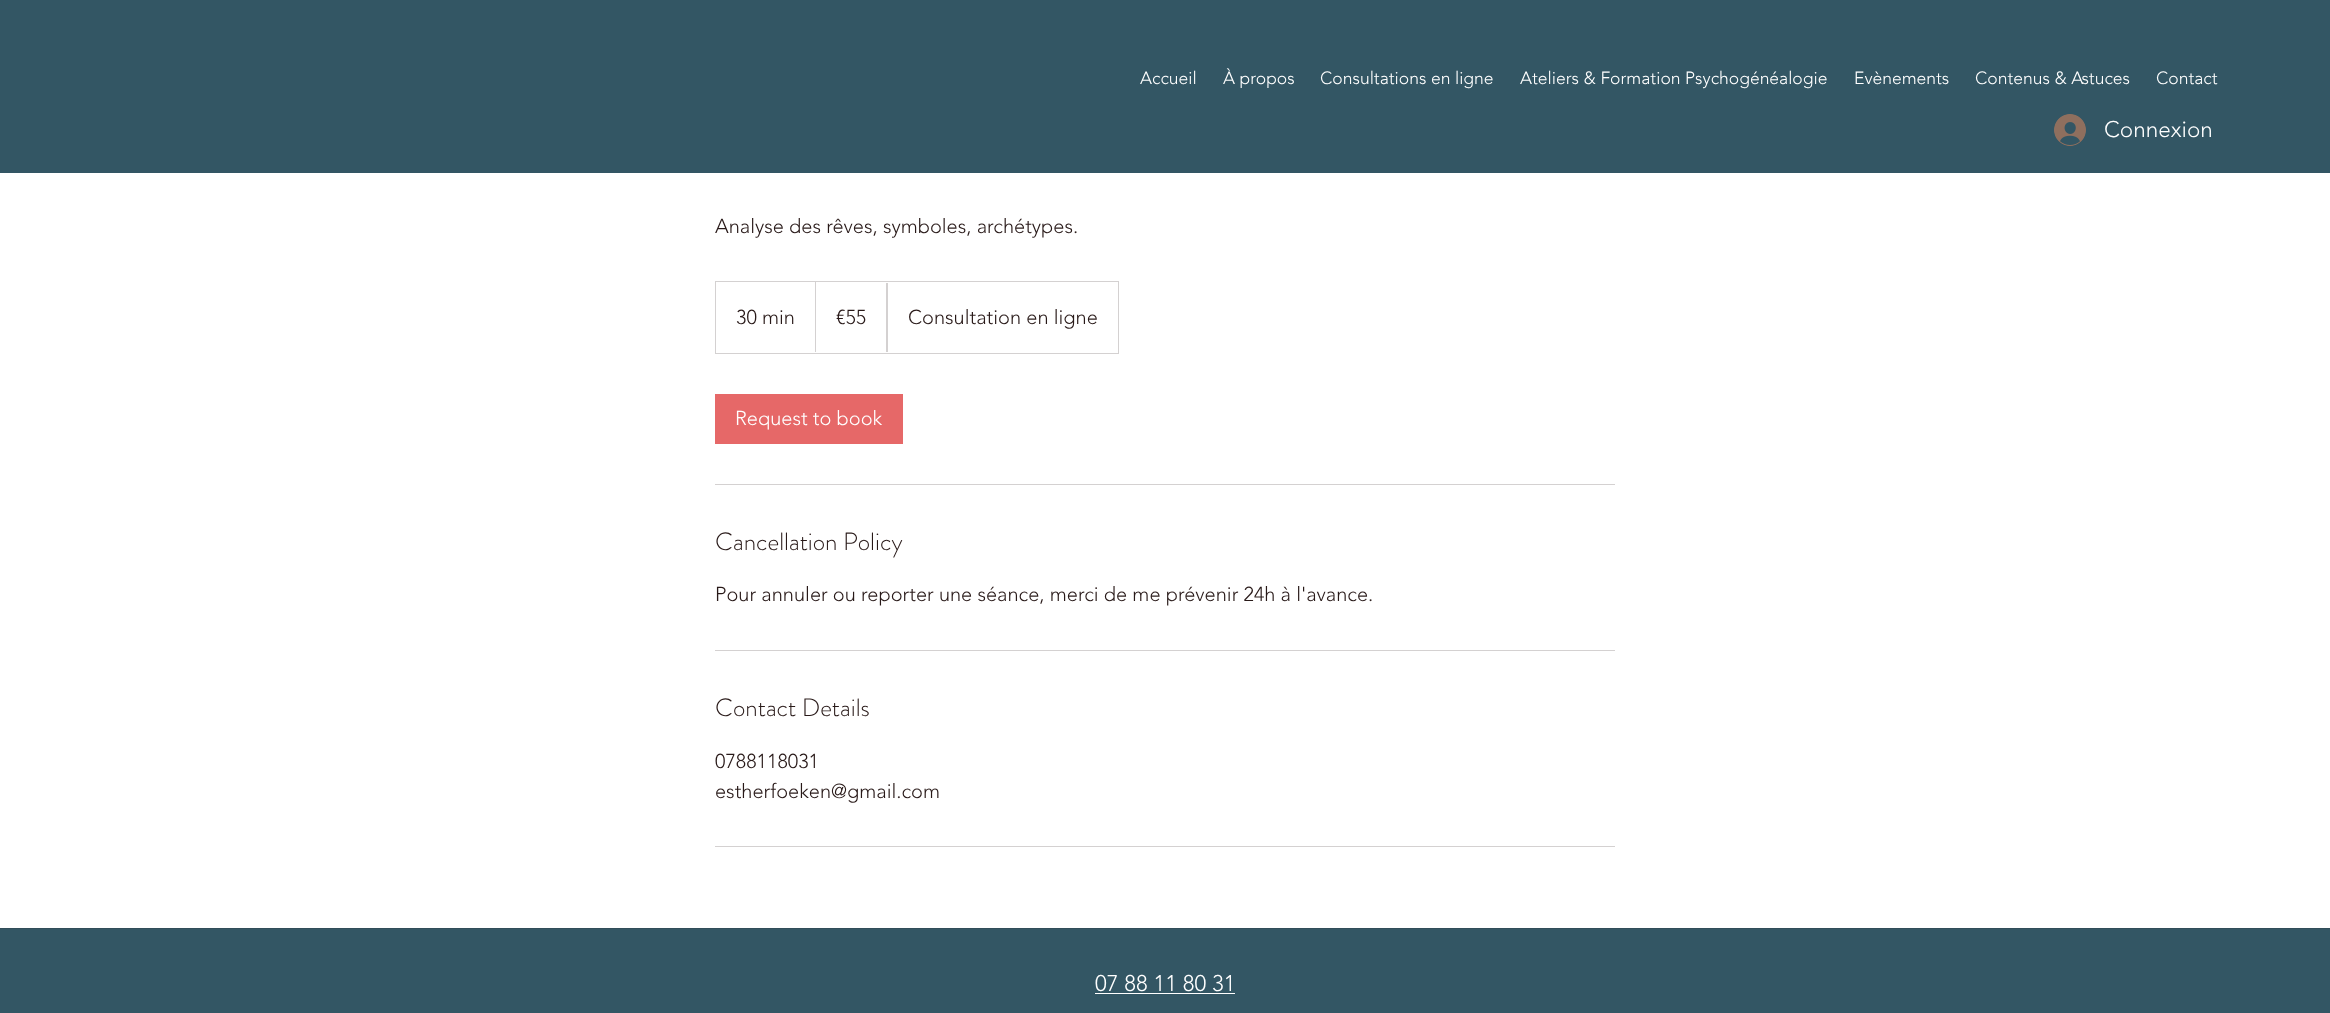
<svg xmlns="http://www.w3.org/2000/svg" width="2330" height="1013">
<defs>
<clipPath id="clip1"><rect x="716" y="283" width="402" height="70"/></clipPath>
</defs>
<rect width="100%" height="100%" fill="#fff"/>
<rect width="2330" height="173" fill="#335664"/>
<text x="1140" y="84" style="font-family:'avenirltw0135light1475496';font-size:17.5px;font-weight:300;fill:#fff">Accueil</text>
<text x="1223" y="84" style="font-family:'avenirltw0135light1475496';font-size:17.5px;font-weight:300;fill:#fff">À propos</text>
<text x="1320" y="84" style="font-family:'avenirltw0135light1475496';font-size:17.5px;font-weight:300;fill:#fff">Consultations en ligne</text>
<text x="1520" y="84" style="font-family:'avenirltw0135light1475496';font-size:17.5px;font-weight:300;fill:#fff">Ateliers &amp; Formation Psychogénéalogie</text>
<text x="1854" y="84" style="font-family:'avenirltw0135light1475496';font-size:17.5px;font-weight:300;fill:#fff">Evènements</text>
<text x="1975" y="84" style="font-family:'avenirltw0135light1475496';font-size:17.5px;font-weight:300;fill:#fff">Contenus &amp; Astuces</text>
<text x="2156" y="84" style="font-family:'avenirltw0135light1475496';font-size:17.5px;font-weight:300;fill:#fff">Contact</text>
<image x="2054" y="114" width="32" height="32" href="media/1.png"/>
<text x="2104" y="137" style="font-family:'avenirltw0135light1475496';font-size:22.5px;font-weight:300;fill:#fff">Connexion</text>
<text x="715" y="233" style="font-family:'avenirltw0135light1475496';font-size:20px;font-weight:300;fill:#281918">Analyse des rêves, symboles, archétypes.</text>
<rect x="715.5" y="281.5" width="403" height="72" fill="none" stroke="#d4d1d1"/>
<text x="736" y="324" style="font-family:'avenirltw0135light1475496';font-size:20px;font-weight:300;fill:#281918">30 min</text>
<path d="M815 352v-71l1 1v70z" fill="#d4d1d1"/>
<text x="836" y="324" style="font-family:'avenirltw0135light1475496';font-size:20px;font-weight:300;fill:#281918">€55</text>
<g clip-path="url(#clip1)">
<path d="M886 352v-71l2 1v70z" fill="#d4d1d1"/>
</g>
<text x="908" y="324" style="font-family:'avenirltw0135light1475496';font-size:20px;font-weight:300;fill:#281918">Consultation en ligne</text>
<rect x="715" y="394" width="188" height="50" fill="#e66868"/>
<text x="735" y="425" style="font-family:'avenirltw0135light1475496';font-size:20px;font-weight:300;fill:#fff">Request to book</text>
<rect x="715" y="484" width="900" height="1" fill="#d4d1d1"/>
<text x="715" y="550" style="font-family:'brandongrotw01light';font-size:25px;font-weight:300;fill:#281918">Cancellation Policy</text>
<text x="715" y="601" style="font-family:'avenirltw0135light1475496';font-size:20px;font-weight:300;fill:#281918">Pour annuler ou reporter une séance, merci de me prévenir 24h à l'avance.</text>
<rect x="715" y="650" width="900" height="1" fill="#d4d1d1"/>
<text x="715" y="716" style="font-family:'brandongrotw01light';font-size:25px;font-weight:300;fill:#281918">Contact Details</text>
<text x="715" y="768" style="font-family:'avenirltw0135light1475496';font-size:20px;font-weight:300;fill:#281918">0788118031</text>
<text x="715" y="798" style="font-family:'avenirltw0135light1475496';font-size:20px;font-weight:300;fill:#281918">estherfoeken@gmail.com</text>
<rect x="715" y="846" width="900" height="1" fill="#d4d1d1"/>
<rect y="929" width="2330" height="84" fill="#335664"/>
<rect y="928" width="2330" height="1" fill="#314d59"/>
<text x="1095" y="991" style="font-family:'avenirltw0135light1475496';font-size:22.5px;font-weight:300;fill:#fff">07 88 11 80 31</text>
<rect x="1095" y="993" width="140" height="1" fill="#fff"/>
</svg>
